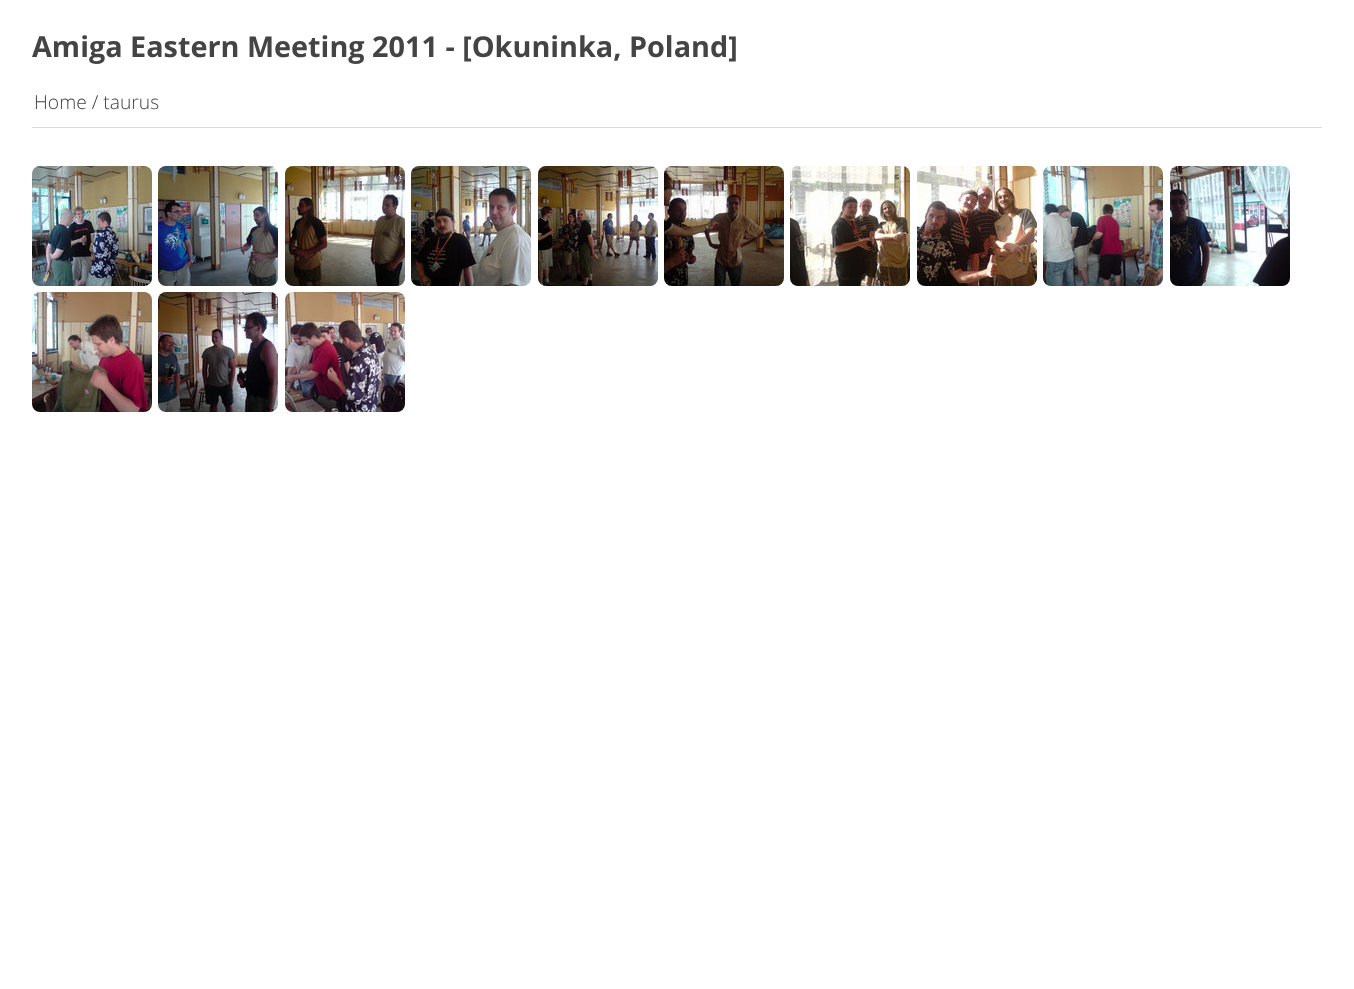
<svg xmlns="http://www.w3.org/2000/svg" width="1354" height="989">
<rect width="100%" height="100%" fill="#fff"/>
<text x="32" y="57" style="font-family:Open Sans;font-size:28.8px;font-weight:bold;fill:#444">Amiga Eastern Meeting 2011 - [Okuninka, Poland]</text>
<rect x="32" y="127" width="1290" height="1" fill="#ddd"/>
<text x="34" y="109" style="font-family:Open Sans;font-size:19.25px;font-weight:300;fill:#444">Home / taurus</text>
<image x="32" y="166" width="120" height="120" href="media/1.png"/>
<image x="158" y="166" width="120" height="120" href="media/2.png"/>
<image x="285" y="166" width="120" height="120" href="media/3.png"/>
<image x="411" y="166" width="120" height="120" href="media/4.png"/>
<image x="538" y="166" width="120" height="120" href="media/5.png"/>
<image x="664" y="166" width="120" height="120" href="media/6.png"/>
<image x="790" y="166" width="120" height="120" href="media/7.png"/>
<image x="917" y="166" width="120" height="120" href="media/8.png"/>
<image x="1043" y="166" width="120" height="120" href="media/9.png"/>
<image x="1170" y="166" width="120" height="120" href="media/10.png"/>
<image x="32" y="292" width="120" height="120" href="media/11.png"/>
<image x="158" y="292" width="120" height="120" href="media/12.png"/>
<image x="285" y="292" width="120" height="120" href="media/13.png"/>
</svg>
